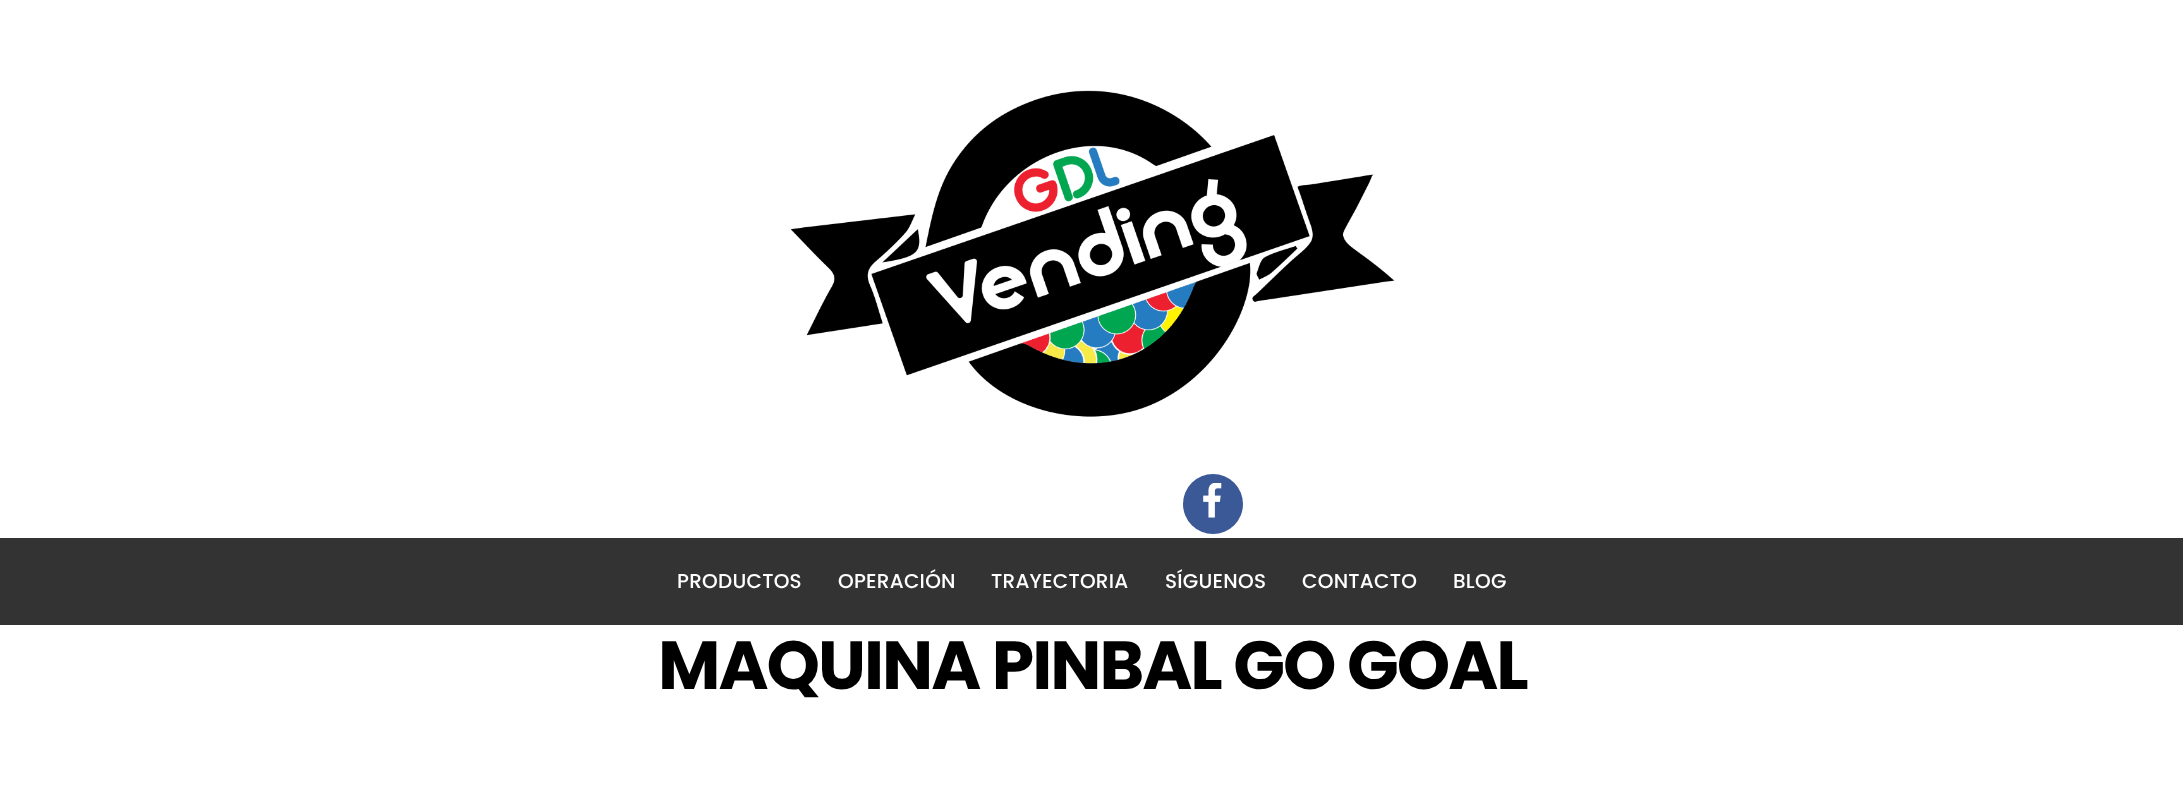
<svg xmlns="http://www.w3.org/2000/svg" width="2183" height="785">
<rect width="100%" height="100%" fill="#fff"/>
<image x="790" y="90" width="605" height="327" href="media/1.png"/>
<circle cx="1213" cy="504" r="30" fill="#3b5997"/>
<image x="1203" y="483" width="19" height="35" href="media/2.png"/>
<rect y="538" width="2183" height="87" fill="#333"/>
<text x="677" y="588" style="font-family:Poppins;font-size:20px;font-weight:500;letter-spacing:0.25px;fill:#fff">PRODUCTOS</text>
<text x="838" y="588" style="font-family:Poppins;font-size:20px;font-weight:500;letter-spacing:0.25px;fill:#fff">OPERACIÓN</text>
<text x="991" y="588" style="font-family:Poppins;font-size:20px;font-weight:500;letter-spacing:0.25px;fill:#fff">TRAYECTORIA</text>
<text x="1165" y="588" style="font-family:Poppins;font-size:20px;font-weight:500;letter-spacing:0.25px;fill:#fff">SÍGUENOS</text>
<text x="1302" y="588" style="font-family:Poppins;font-size:20px;font-weight:500;letter-spacing:0.25px;fill:#fff">CONTACTO</text>
<text x="1453" y="588" style="font-family:Poppins;font-size:20px;font-weight:500;letter-spacing:0.25px;fill:#fff">BLOG</text>
<text x="658" y="689" style="font-family:Poppins;font-size:68px;font-weight:bold;letter-spacing:-2px;fill:#000">MAQUINA PINBAL GO GOAL</text>
</svg>
